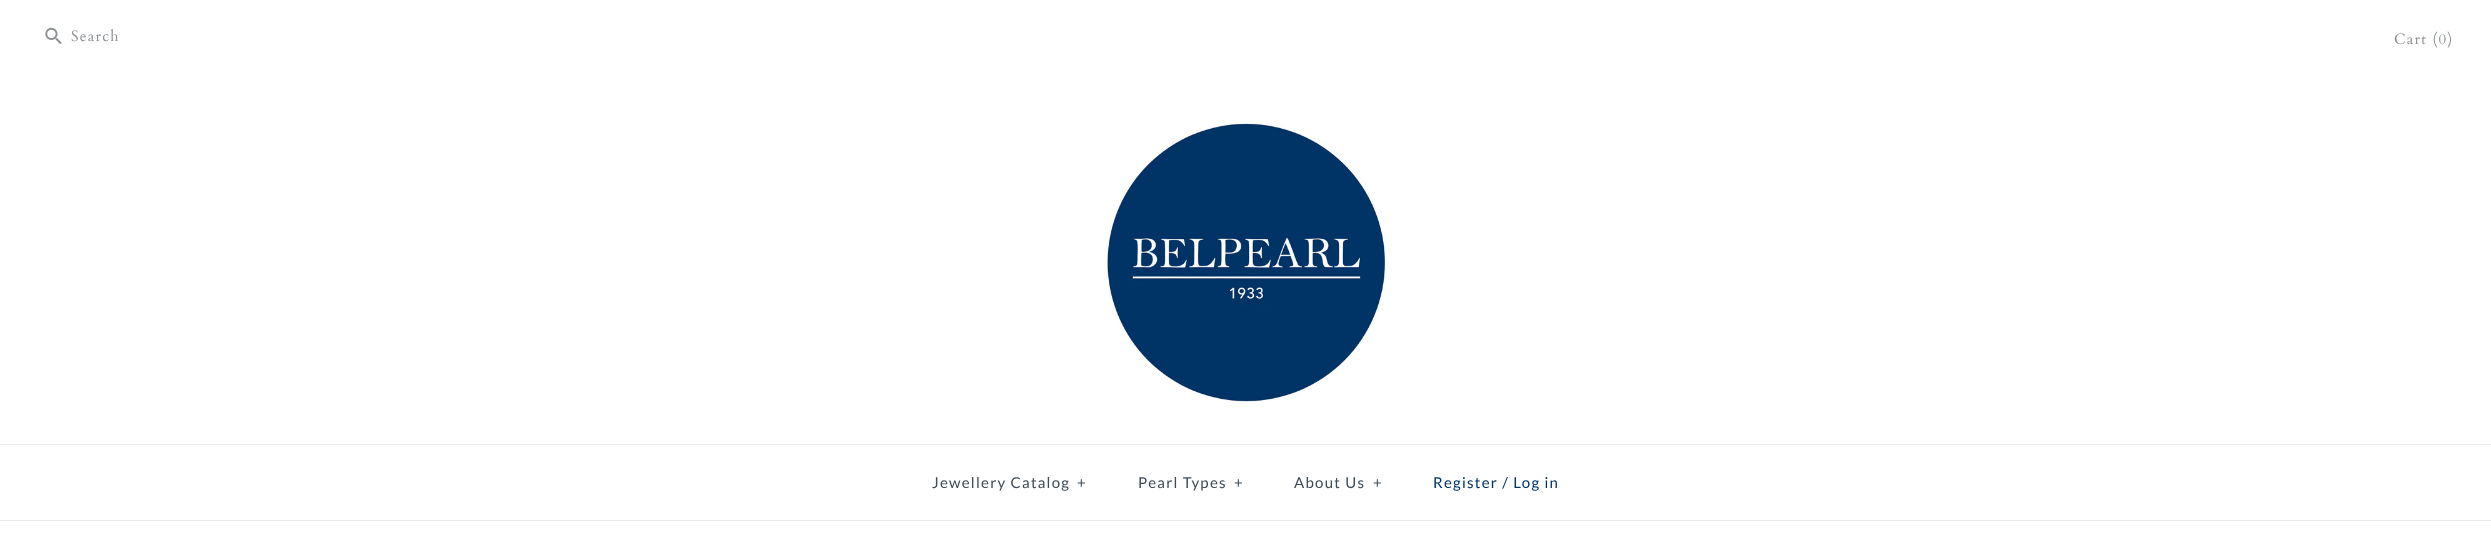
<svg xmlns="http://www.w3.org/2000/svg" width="2491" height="550">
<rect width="100%" height="100%" fill="#fff"/>
<image x="45" y="27" width="17" height="18" href="media/1.png"/>
<text x="71" y="41" style="font-family:Cardo;font-size:15px;letter-spacing:1.25px;fill:#8a8f93">Search</text>
<text x="2394" y="44" style="font-family:Cardo;font-size:15px;letter-spacing:1.25px;fill:#8a8f93">Cart (0)</text>
<image x="1107" y="123" width="279" height="279" href="media/2.png"/>
<rect y="520" width="2491" height="1" fill="#e8e8e8"/>
<rect y="444" width="2491" height="1" fill="#e8e8e8"/>
<text x="932" y="488" style="font-family:Lato;font-size:15px;letter-spacing:1.25px;fill:#3f4b57">Jewellery Catalog</text>
<text x="1077" y="488" style="font-family:Lato;font-size:15px;letter-spacing:1.25px;fill:#3f4b57">+</text>
<text x="1138" y="488" style="font-family:Lato;font-size:15px;letter-spacing:1.25px;fill:#3f4b57">Pearl Types</text>
<text x="1234" y="488" style="font-family:Lato;font-size:15px;letter-spacing:1.25px;fill:#3f4b57">+</text>
<text x="1294" y="488" style="font-family:Lato;font-size:15px;letter-spacing:1.25px;fill:#3f4b57">About Us</text>
<text x="1373" y="488" style="font-family:Lato;font-size:15px;letter-spacing:1.25px;fill:#3f4b57">+</text>
<text x="1433" y="488" style="font-family:Lato;font-size:15px;letter-spacing:1.25px;fill:#036">Register / Log in</text>
</svg>
